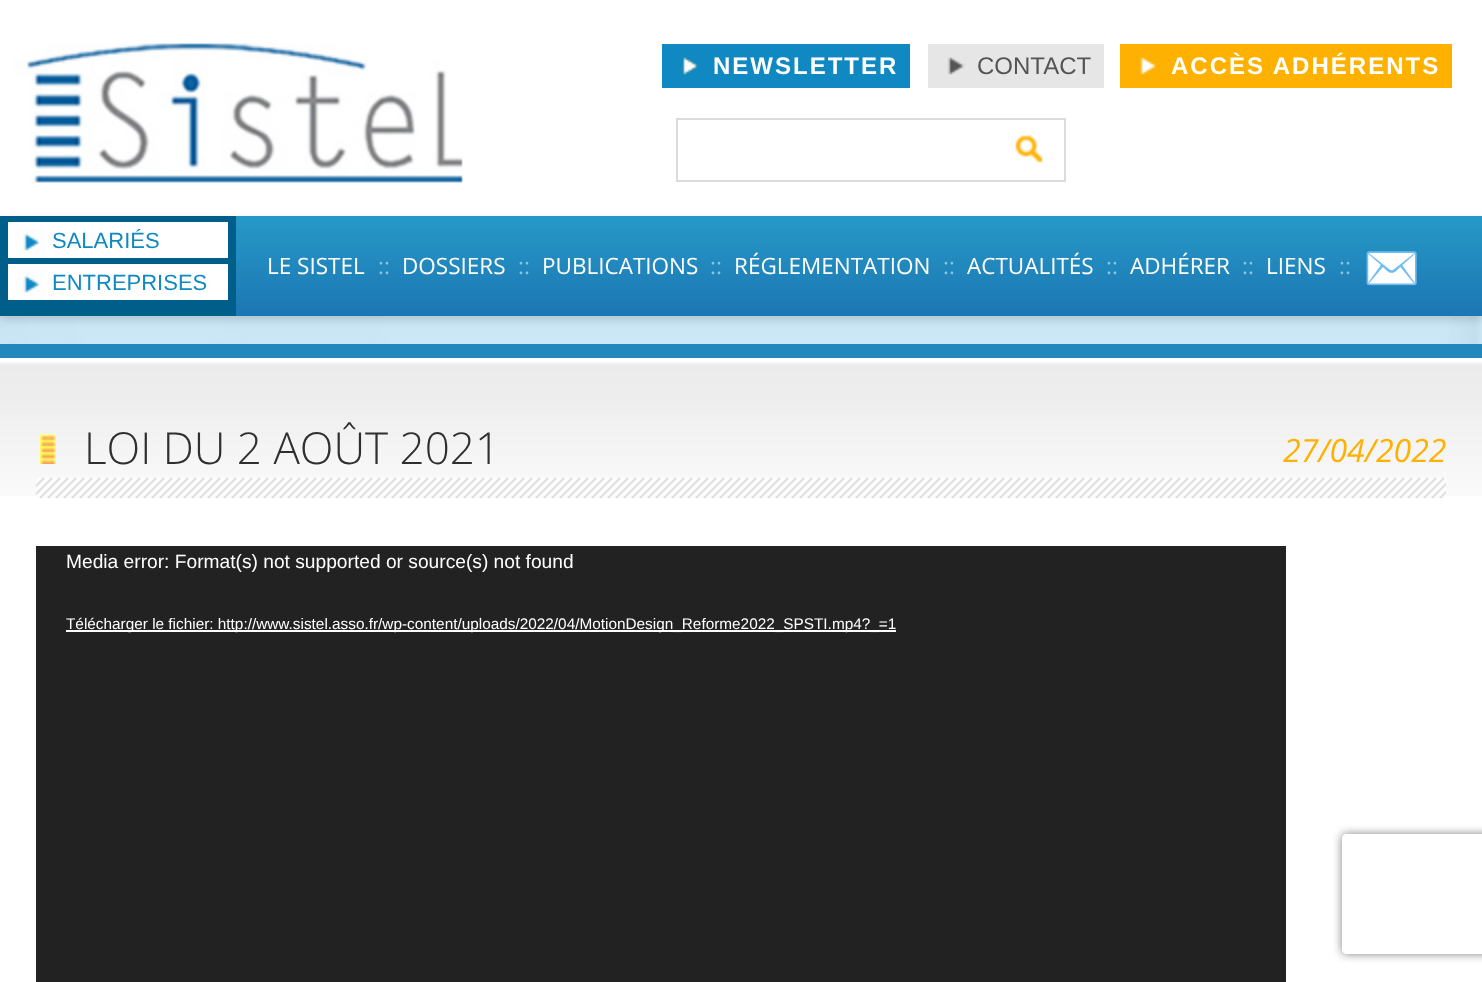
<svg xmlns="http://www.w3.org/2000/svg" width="1482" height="982">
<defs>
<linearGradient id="g1" gradientUnits="userSpaceOnUse" x1="741" y1="216" x2="741" y2="316"><stop offset="0" stop-color="#2699c7"/><stop offset="1" stop-color="#1c76b3"/></linearGradient>
<clipPath id="clip1"><path d="M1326 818h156v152h-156zm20 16h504c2 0 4 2 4 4v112c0 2-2 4-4 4h-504c-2 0-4-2-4-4v-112c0-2 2-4 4-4z" clip-rule="evenodd"/></clipPath>
</defs>
<rect width="100%" height="100%" fill="#fff"/>
<image x="0" y="316" width="1482" height="28" href="media/1.png"/>
<image x="14" y="43" width="449" height="142" href="media/2.png"/>
<rect x="662" y="44" width="248" height="44" fill="#1089c3"/>
<image x="682" y="57" width="16" height="18" href="media/3.png"/>
<text x="713" y="74" style="font-family:Liberation Sans;font-size:24px;font-weight:bold;letter-spacing:2px;fill:#fff">NEWSLETTER</text>
<rect x="928" y="44" width="176" height="44" fill="#e6e6e6"/>
<image x="947" y="57" width="18" height="18" href="media/4.png"/>
<text x="977" y="74" style="font-family:Liberation Sans;font-size:24px;fill:#545454">CONTACT</text>
<rect x="1120" y="44" width="332" height="44" fill="#ffb100"/>
<image x="1130" y="54" width="30" height="24" href="media/5.png"/>
<text x="1171" y="74" style="font-family:Liberation Sans;font-size:24px;font-weight:bold;letter-spacing:2px;fill:#fff">ACCÈS ADHÉRENTS</text>
<rect x="676" y="118" width="390" height="2" fill="#dbdbdb"/>
<rect x="676" y="180" width="330" height="2" fill="#dbdbdb"/>
<rect x="676" y="118" width="2" height="64" fill="#dbdbdb"/>
<image x="1015" y="135" width="28" height="28" href="media/6.png"/>
<rect x="1064" y="118" width="2" height="64" fill="#dbdbdb"/>
<rect x="1006" y="180" width="60" height="2" fill="#dbdbdb"/>
<rect y="220" width="1482" height="100" fill="#00000024" filter="blur(4px)"/>
<rect x="236" y="216" width="1246" height="100" fill="url(#g1)"/>
<rect y="216" width="236" height="100" fill="#005e8b"/>
<rect x="8" y="222" width="220" height="36" fill="#fff"/>
<image x="14" y="226" width="32" height="32" href="media/7.png"/>
<text x="52" y="248" style="font-family:Liberation Sans;font-size:22px;fill:#1089c3">SALARIÉS</text>
<rect x="8" y="264" width="220" height="36" fill="#fff"/>
<image x="14" y="268" width="32" height="32" href="media/7.png"/>
<text x="52" y="290" style="font-family:Liberation Sans;font-size:22px;fill:#1089c3">ENTREPRISES</text>
<text x="267" y="274" style="font-family:Open Sans;font-size:22.5px;fill:#fff">LE SISTEL</text>
<text x="378" y="274" style="font-family:Open Sans;font-size:22.5px;fill:#87c5e3">::</text>
<text x="402" y="274" style="font-family:Open Sans;font-size:22.5px;fill:#fff">DOSSIERS</text>
<text x="518" y="274" style="font-family:Open Sans;font-size:22.5px;fill:#87c5e3">::</text>
<text x="542" y="274" style="font-family:Open Sans;font-size:22.5px;fill:#fff">PUBLICATIONS</text>
<text x="710" y="274" style="font-family:Open Sans;font-size:22.5px;fill:#87c5e3">::</text>
<text x="734" y="274" style="font-family:Open Sans;font-size:22.5px;fill:#fff">RÉGLEMENTATION</text>
<text x="943" y="274" style="font-family:Open Sans;font-size:22.5px;fill:#87c5e3">::</text>
<text x="967" y="274" style="font-family:Open Sans;font-size:22.5px;fill:#fff">ACTUALITÉS</text>
<text x="1106" y="274" style="font-family:Open Sans;font-size:22.5px;fill:#87c5e3">::</text>
<text x="1130" y="274" style="font-family:Open Sans;font-size:22.5px;fill:#fff">ADHÉRER</text>
<text x="1242" y="274" style="font-family:Open Sans;font-size:22.5px;fill:#87c5e3">::</text>
<text x="1266" y="274" style="font-family:Open Sans;font-size:22.5px;fill:#fff">LIENS</text>
<text x="1339" y="274" style="font-family:Open Sans;font-size:22.5px;fill:#87c5e3">::</text>
<text x="1363" y="284" style="font-family:Noto Color Emoji;font-size:46px;fill:#fff">✉️</text>
<image x="0" y="362" width="1482" height="134" href="media/8.png"/>
<rect y="344" width="1482" height="14" fill="#2187bd"/>
<image x="36" y="434" width="1410" height="64" href="media/9.png"/>
<text x="84" y="464" style="font-family:Open Sans;font-size:44px;font-weight:300;fill:#2f2f2f">LOI DU 2 AOÛT 2021</text>
<text x="1283" y="462" style="font-family:Open Sans;font-size:32px;font-style:italic;fill:#ffb100">27/04/2022</text>
<rect x="36" y="546" width="1250" height="436" fill="#222"/>
<text x="66" y="568" style="font-family:Liberation Sans;font-size:19.2px;fill:#fff">Media error: Format(s) not supported or source(s) not found</text>
<rect x="66" y="630" width="830" height="2" fill="#fff"/>
<text x="66" y="629" style="font-family:Liberation Sans;font-size:15.35px;fill:#fff">Télécharger le fichier: http://www.sistel.asso.fr/wp-content/uploads/2022/04/MotionDesign_Reforme2022_SPSTI.mp4?_=1</text>
<g clip-path="url(#clip1)">
<rect x="1342" y="834" width="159" height="120" rx="4" fill="#808080" filter="blur(5px)"/>
</g>
</svg>
